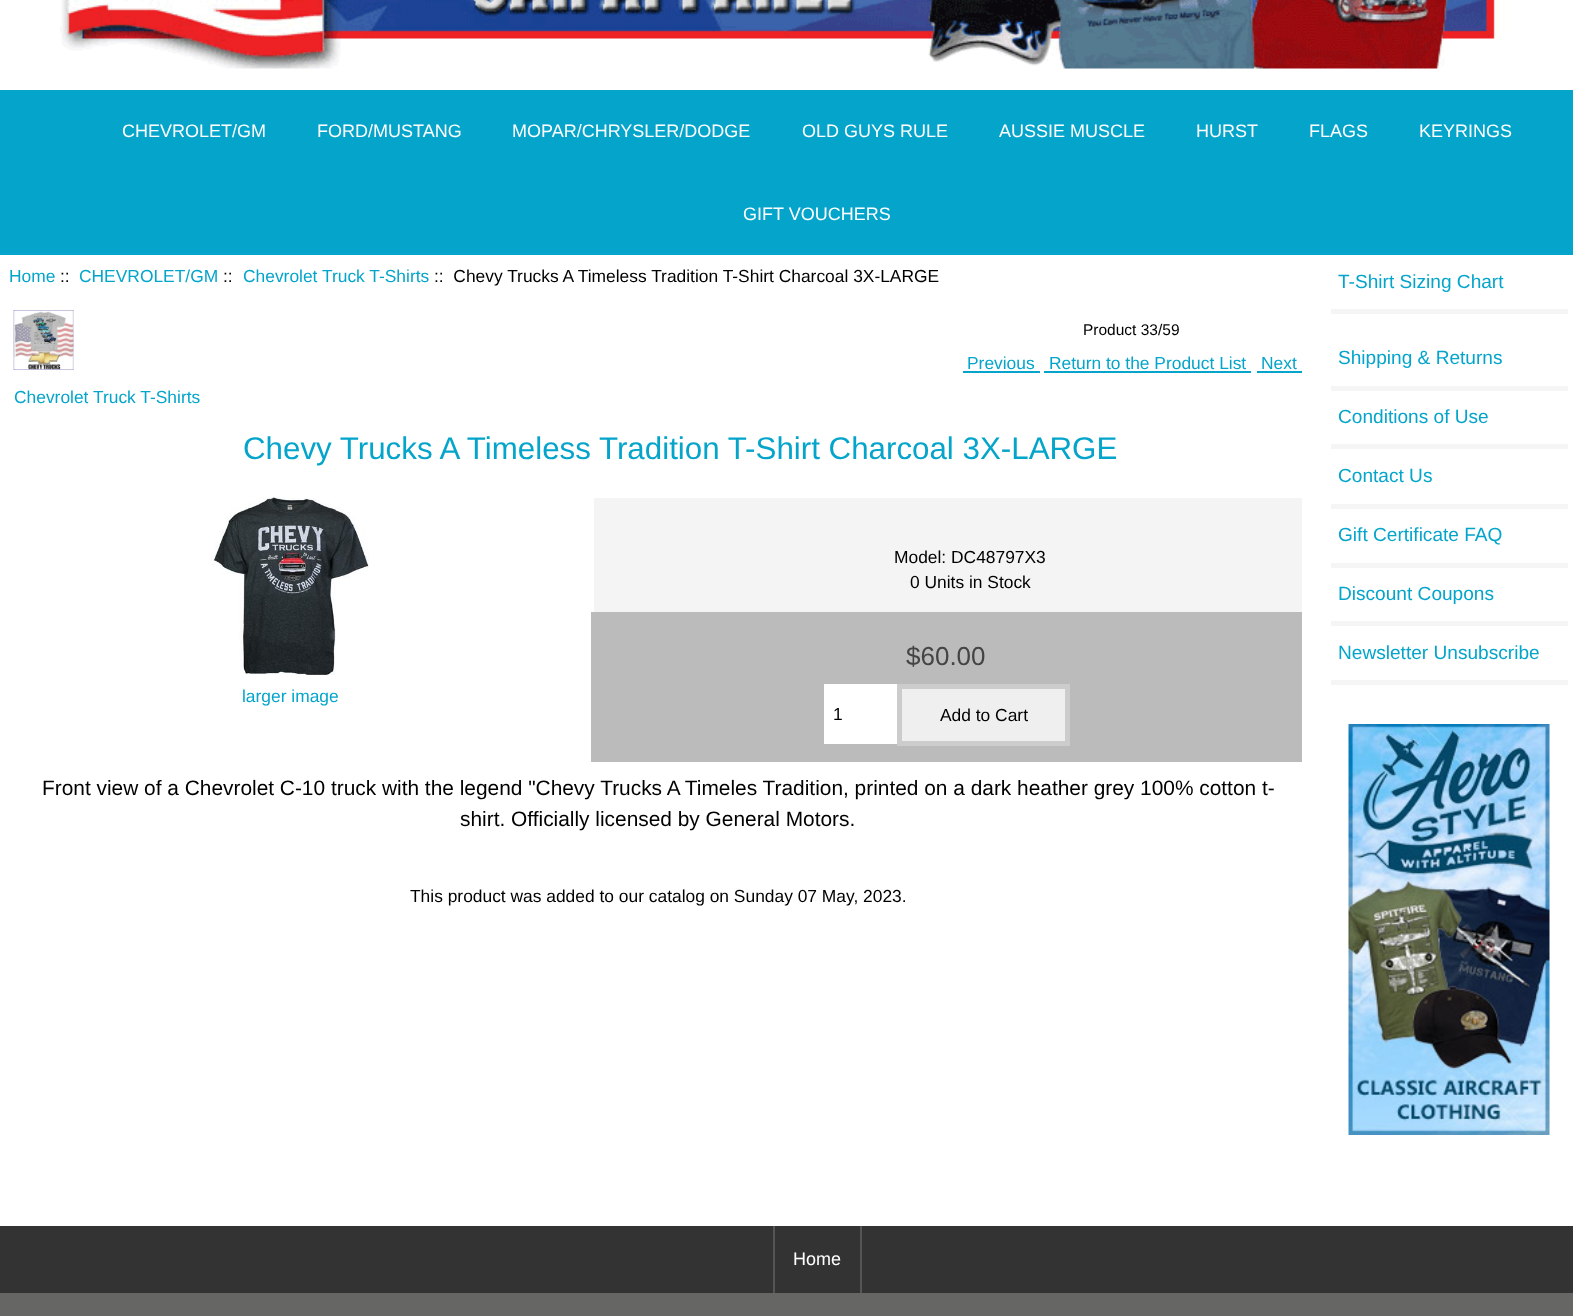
<svg xmlns="http://www.w3.org/2000/svg" width="1573" height="1316">
<rect width="100%" height="100%" fill="#fff"/>
<image x="60" y="0" width="1445" height="69" href="media/1.png"/>
<rect y="90" width="1573" height="165" fill="#05a5cb"/>
<text x="122" y="137" style="font-family:Liberation Sans;font-size:18px;fill:#fff">CHEVROLET/GM</text>
<text x="317" y="137" style="font-family:Liberation Sans;font-size:18px;fill:#fff">FORD/MUSTANG</text>
<text x="512" y="137" style="font-family:Liberation Sans;font-size:18px;fill:#fff">MOPAR/CHRYSLER/DODGE</text>
<text x="802" y="137" style="font-family:Liberation Sans;font-size:18px;fill:#fff">OLD GUYS RULE</text>
<text x="999" y="137" style="font-family:Liberation Sans;font-size:18px;fill:#fff">AUSSIE MUSCLE</text>
<text x="1196" y="137" style="font-family:Liberation Sans;font-size:18px;fill:#fff">HURST</text>
<text x="1309" y="137" style="font-family:Liberation Sans;font-size:18px;fill:#fff">FLAGS</text>
<text x="1419" y="137" style="font-family:Liberation Sans;font-size:18px;fill:#fff">KEYRINGS</text>
<text x="743" y="220" style="font-family:Liberation Sans;font-size:18px;fill:#fff">GIFT VOUCHERS</text>
<text x="9" y="282" style="font-family:Liberation Sans;font-size:17.4px;fill:#05a5cb">Home</text>
<text x="60" y="282" style="font-family:Liberation Sans;font-size:17.4px;fill:#000">::</text>
<text x="79" y="282" style="font-family:Liberation Sans;font-size:17.4px;fill:#05a5cb">CHEVROLET/GM</text>
<text x="223" y="282" style="font-family:Liberation Sans;font-size:17.4px;fill:#000">::</text>
<text x="243" y="282" style="font-family:Liberation Sans;font-size:17.4px;fill:#05a5cb">Chevrolet Truck T-Shirts</text>
<text x="434" y="282" style="font-family:Liberation Sans;font-size:17.4px;fill:#000" xml:space="preserve">::  Chevy Trucks A Timeless Tradition T-Shirt Charcoal 3X-LARGE</text>
<text x="1083" y="335" style="font-family:Liberation Sans;font-size:15.5px;fill:#000">Product 33/59</text>
<text x="967" y="369" style="font-family:Liberation Sans;font-size:17.4px;fill:#05a5cb">Previous</text>
<rect x="963" y="371" width="77" height="2" fill="#05a5cb"/>
<text x="1049" y="369" style="font-family:Liberation Sans;font-size:17.4px;fill:#05a5cb">Return to the Product List</text>
<rect x="1044" y="371" width="207" height="2" fill="#05a5cb"/>
<text x="1261" y="369" style="font-family:Liberation Sans;font-size:17.4px;fill:#05a5cb">Next</text>
<rect x="1257" y="371" width="45" height="2" fill="#05a5cb"/>
<image x="13" y="310" width="61" height="60" href="media/2.png"/>
<text x="14" y="403" style="font-family:Liberation Sans;font-size:17.4px;fill:#05a5cb">Chevrolet Truck T-Shirts</text>
<text x="243" y="459" style="font-family:Liberation Sans;font-size:31.3px;fill:#05a5cb">Chevy Trucks A Timeless Tradition T-Shirt Charcoal 3X-LARGE</text>
<rect x="594" y="498" width="708" height="114" fill="#f4f4f4"/>
<text x="894" y="563" style="font-family:Liberation Sans;font-size:17.4px;fill:#000">Model: DC48797X3</text>
<text x="910" y="588" style="font-family:Liberation Sans;font-size:17.4px;fill:#000">0 Units in Stock</text>
<image x="211" y="497" width="158" height="178" href="media/3.png"/>
<text x="242" y="702" style="font-family:Liberation Sans;font-size:17.4px;fill:#05a5cb">larger image</text>
<rect x="591" y="612" width="711" height="150" fill="#bbb"/>
<text x="906" y="665" style="font-family:Liberation Sans;font-size:26px;fill:#444">$60.00</text>
<rect x="824" y="684" width="73" height="60" fill="#fff"/>
<text x="833" y="720" style="font-family:Liberation Sans;font-size:17.4px;fill:#000">1</text>
<rect x="899.5" y="686.5" width="168" height="57" fill="#efefef" stroke="#ccc" stroke-width="5"/>
<text x="940" y="721" style="font-family:Liberation Sans;font-size:17.4px;fill:#000">Add to Cart</text>
<text x="42" y="795" style="font-family:Liberation Sans;font-size:20.88px;fill:#000">Front view of a Chevrolet C-10 truck with the legend "Chevy Trucks A Timeles Tradition, printed on a dark heather grey 100% cotton t-</text>
<text x="460" y="826" style="font-family:Liberation Sans;font-size:20.88px;fill:#000">shirt. Officially licensed by General Motors.</text>
<text x="410" y="902" style="font-family:Liberation Sans;font-size:17.4px;fill:#000">This product was added to our catalog on Sunday 07 May, 2023.</text>
<rect x="1331" y="309" width="237" height="5" fill="#f5f5f5"/>
<text x="1338" y="288" style="font-family:Liberation Sans;font-size:19.1px;fill:#05a5cb">T-Shirt Sizing Chart</text>
<rect x="1331" y="386" width="237" height="5" fill="#f5f5f5"/>
<text x="1338" y="364" style="font-family:Liberation Sans;font-size:19.1px;fill:#05a5cb">Shipping &amp; Returns</text>
<rect x="1331" y="444" width="237" height="5" fill="#f5f5f5"/>
<text x="1338" y="423" style="font-family:Liberation Sans;font-size:19.1px;fill:#05a5cb">Conditions of Use</text>
<rect x="1331" y="504" width="237" height="5" fill="#f5f5f5"/>
<text x="1338" y="482" style="font-family:Liberation Sans;font-size:19.1px;fill:#05a5cb">Contact Us</text>
<rect x="1331" y="563" width="237" height="5" fill="#f5f5f5"/>
<text x="1338" y="541" style="font-family:Liberation Sans;font-size:19.1px;fill:#05a5cb">Gift Certificate FAQ</text>
<rect x="1331" y="621" width="237" height="5" fill="#f5f5f5"/>
<text x="1338" y="600" style="font-family:Liberation Sans;font-size:19.1px;fill:#05a5cb">Discount Coupons</text>
<rect x="1331" y="680" width="237" height="5" fill="#f5f5f5"/>
<text x="1338" y="659" style="font-family:Liberation Sans;font-size:19.1px;fill:#05a5cb">Newsletter Unsubscribe</text>
<image x="1348" y="724" width="202" height="411" href="media/4.png"/>
<rect y="1226" width="1573" height="67" fill="#333"/>
<rect x="860" y="1226" width="2" height="67" fill="#555"/>
<rect x="773" y="1226" width="2" height="67" fill="#555"/>
<text x="793" y="1265" style="font-family:Liberation Sans;font-size:18px;fill:#fff">Home</text>
<rect y="1293" width="1573" height="23" fill="#666665"/>
</svg>
